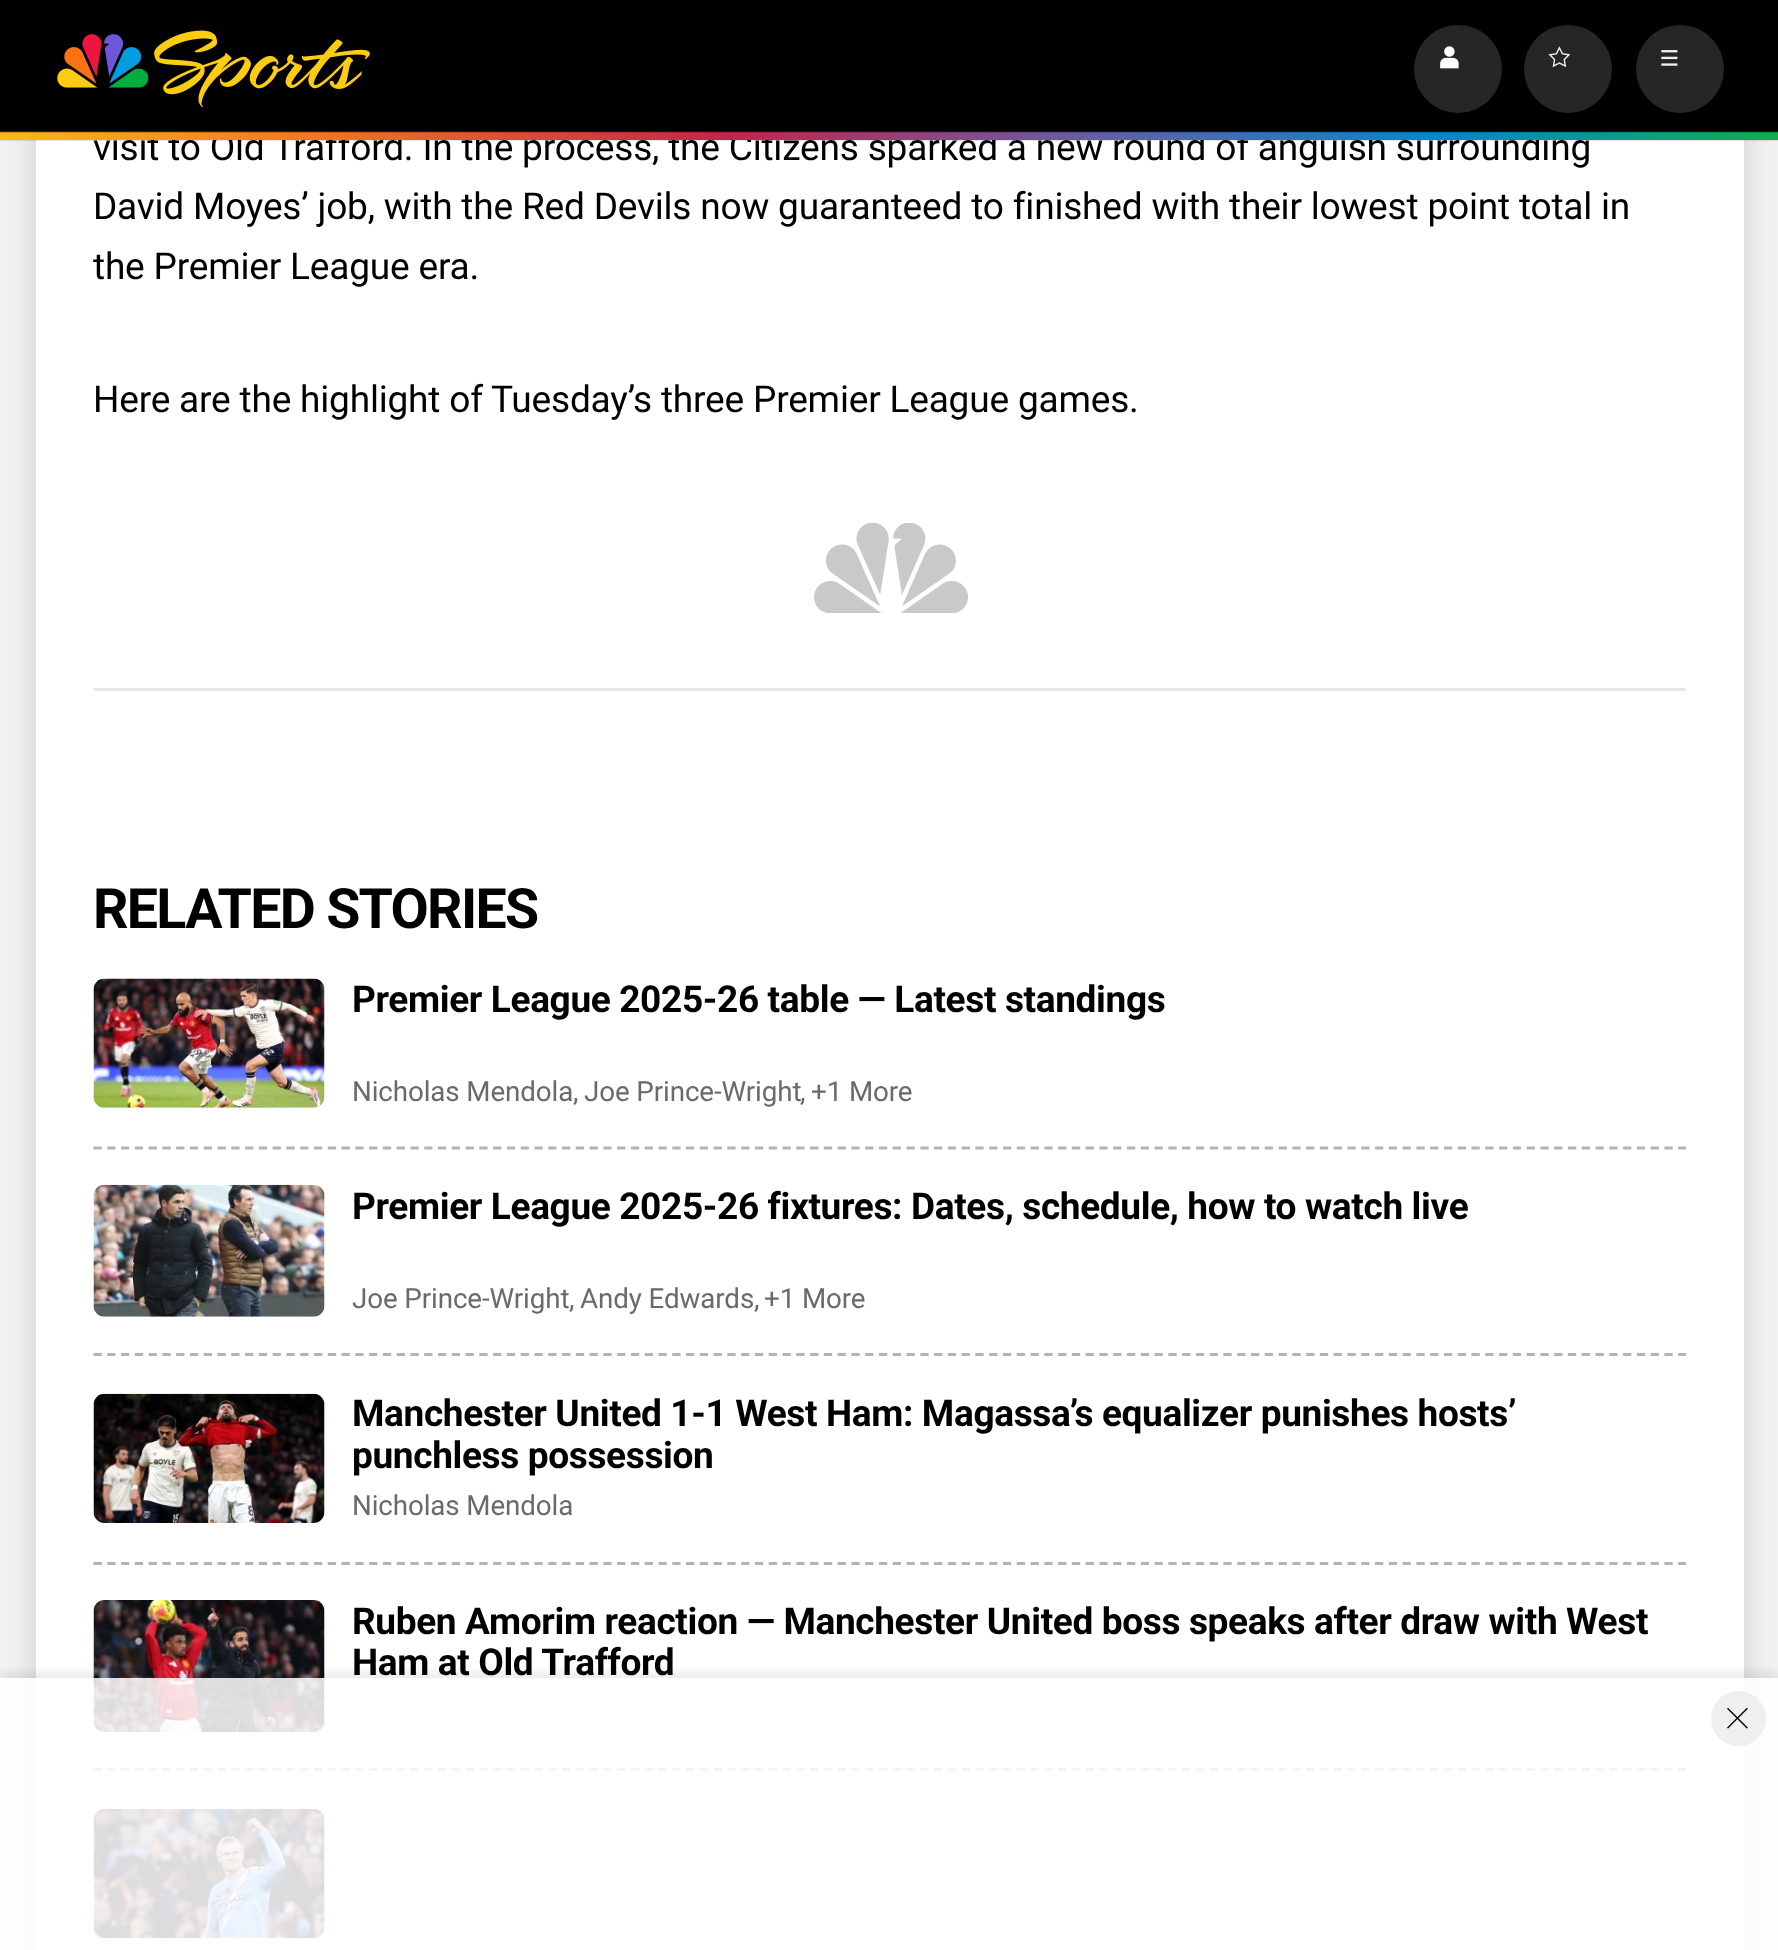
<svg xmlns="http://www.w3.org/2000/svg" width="1778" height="1950">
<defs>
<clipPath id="clip1"><rect x="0" y="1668" width="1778" height="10"/></clipPath>
</defs>
<rect width="100%" height="100%" fill="#f1f1f1"/>
<rect x="36" y="-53" width="1708" height="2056" rx="11" fill="#00000026" filter="blur(14px)"/>
<rect width="1778" height="133" fill="#000"/>
<rect x="36" y="140" width="1708" height="1810" fill="#fff"/>
<rect y="140" width="1778" height="1" fill="#0000001a"/>
<image x="57" y="30" width="313" height="77" href="media/1.png"/>
<circle cx="1458" cy="69" r="44" fill="#262626"/>
<image x="1440" y="46" width="19" height="23" href="media/2.png"/>
<circle cx="1568" cy="69" r="44" fill="#262626"/>
<image x="1548" y="46" width="23" height="22" href="media/3.png"/>
<circle cx="1680" cy="69" r="44" fill="#262626"/>
<image x="1661" y="50" width="17" height="16" href="media/4.png"/>
<text x="93" y="160" style="font-family:Roboto;font-size:37.05px;letter-spacing:-0.2px;fill:#000">visit to Old Trafford. In the process, the Citizens sparked a new round of anguish surrounding</text>
<image x="0" y="131" width="1778" height="9" href="media/5.png"/>
<rect x="94" y="688" width="1592" height="3" fill="#e6e6e6"/>
<text x="93" y="219" style="font-family:Roboto;font-size:37.05px;letter-spacing:-0.2px;fill:#000">David Moyes’ job, with the Red Devils now guaranteed to finished with their lowest point total in</text>
<text x="93" y="279" style="font-family:Roboto;font-size:37.05px;letter-spacing:-0.2px;fill:#000">the Premier League era.</text>
<text x="93" y="412" style="font-family:Roboto;font-size:37.05px;letter-spacing:-0.2px;fill:#000">Here are the highlight of Tuesday’s three Premier League games.</text>
<image x="814" y="523" width="154" height="90" href="media/6.png"/>
<text x="93" y="928" style="font-family:Roboto;font-size:55.5px;font-weight:bold;letter-spacing:-1.7px;fill:#000">RELATED STORIES</text>
<image x="93" y="978" width="232" height="130" href="media/7.png"/>
<text x="352" y="1012" style="font-family:Roboto;font-size:37.05px;font-weight:bold;letter-spacing:-0.37px;fill:#000">Premier League 2025-26 table — Latest standings</text>
<text x="352" y="1101" style="font-family:Roboto;font-size:27.75px;letter-spacing:-0.1px;fill:#6a6a6a">Nicholas Mendola</text>
<text x="573" y="1101" style="font-family:Roboto;font-size:27.75px;letter-spacing:-0.1px;fill:#6a6a6a">,</text>
<text x="584" y="1101" style="font-family:Roboto;font-size:27.75px;letter-spacing:-0.1px;fill:#6a6a6a">Joe Prince-Wright</text>
<text x="800" y="1101" style="font-family:Roboto;font-size:27.75px;letter-spacing:-0.1px;fill:#6a6a6a">,</text>
<text x="811" y="1101" style="font-family:Roboto;font-size:27.75px;letter-spacing:-0.1px;fill:#6a6a6a">+1 More</text>
<path d="M93.5 1148h1592.5" fill="none" stroke="#b3b3b3" stroke-width="2.8" stroke-dasharray="8.25 5.53"/>
<image x="93" y="1184" width="232" height="133" href="media/8.png"/>
<text x="352" y="1219" style="font-family:Roboto;font-size:37.05px;font-weight:bold;letter-spacing:-0.37px;fill:#000">Premier League 2025-26 fixtures: Dates, schedule, how to watch live</text>
<text x="352" y="1308" style="font-family:Roboto;font-size:27.75px;letter-spacing:-0.1px;fill:#6a6a6a">Joe Prince-Wright</text>
<text x="569" y="1308" style="font-family:Roboto;font-size:27.75px;letter-spacing:-0.1px;fill:#6a6a6a">,</text>
<text x="580" y="1308" style="font-family:Roboto;font-size:27.75px;letter-spacing:-0.1px;fill:#6a6a6a">Andy Edwards,</text>
<text x="764" y="1308" style="font-family:Roboto;font-size:27.75px;letter-spacing:-0.1px;fill:#6a6a6a">+1 More</text>
<path d="M93.5 1354.5h1592.5" fill="none" stroke="#b3b3b3" stroke-width="2.8" stroke-dasharray="8.25 5.53"/>
<image x="93" y="1393" width="232" height="130" href="media/9.png"/>
<text x="352" y="1426" style="font-family:Roboto;font-size:37.05px;font-weight:bold;letter-spacing:-0.37px;fill:#000">Manchester United 1-1 West Ham: Magassa’s equalizer punishes hosts’</text>
<text x="352" y="1468" style="font-family:Roboto;font-size:37.05px;font-weight:bold;letter-spacing:-0.37px;fill:#000">punchless possession</text>
<text x="352" y="1515" style="font-family:Roboto;font-size:27.75px;letter-spacing:-0.1px;fill:#6a6a6a">Nicholas Mendola</text>
<path d="M93.5 1563.5h1592.5" fill="none" stroke="#b3b3b3" stroke-width="2.8" stroke-dasharray="8.25 5.53"/>
<image x="93" y="1600" width="232" height="132" href="media/10.png"/>
<text x="352" y="1634" style="font-family:Roboto;font-size:37.05px;font-weight:bold;letter-spacing:-0.37px;fill:#000">Ruben Amorim reaction — Manchester United boss speaks after draw with West</text>
<text x="352" y="1675" style="font-family:Roboto;font-size:37.05px;font-weight:bold;letter-spacing:-0.37px;fill:#000">Ham at Old Trafford</text>
<path d="M93.5 1769.5h1592.5" fill="none" stroke="#b3b3b3" stroke-width="2.8" stroke-dasharray="8.25 5.53"/>
<image x="93" y="1809" width="232" height="130" href="media/11.png"/>
<g clip-path="url(#clip1)">
<rect y="1672" width="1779" height="275" fill="#00000014" filter="blur(5.5px)"/>
</g>
<rect y="1678" width="1778" height="272" fill="#ffffffd9"/>
<circle cx="1738.5" cy="1718.5" r="27.5" fill="#efefef"/>
<image x="1727" y="1708" width="21" height="21" href="media/12.png"/>
</svg>
